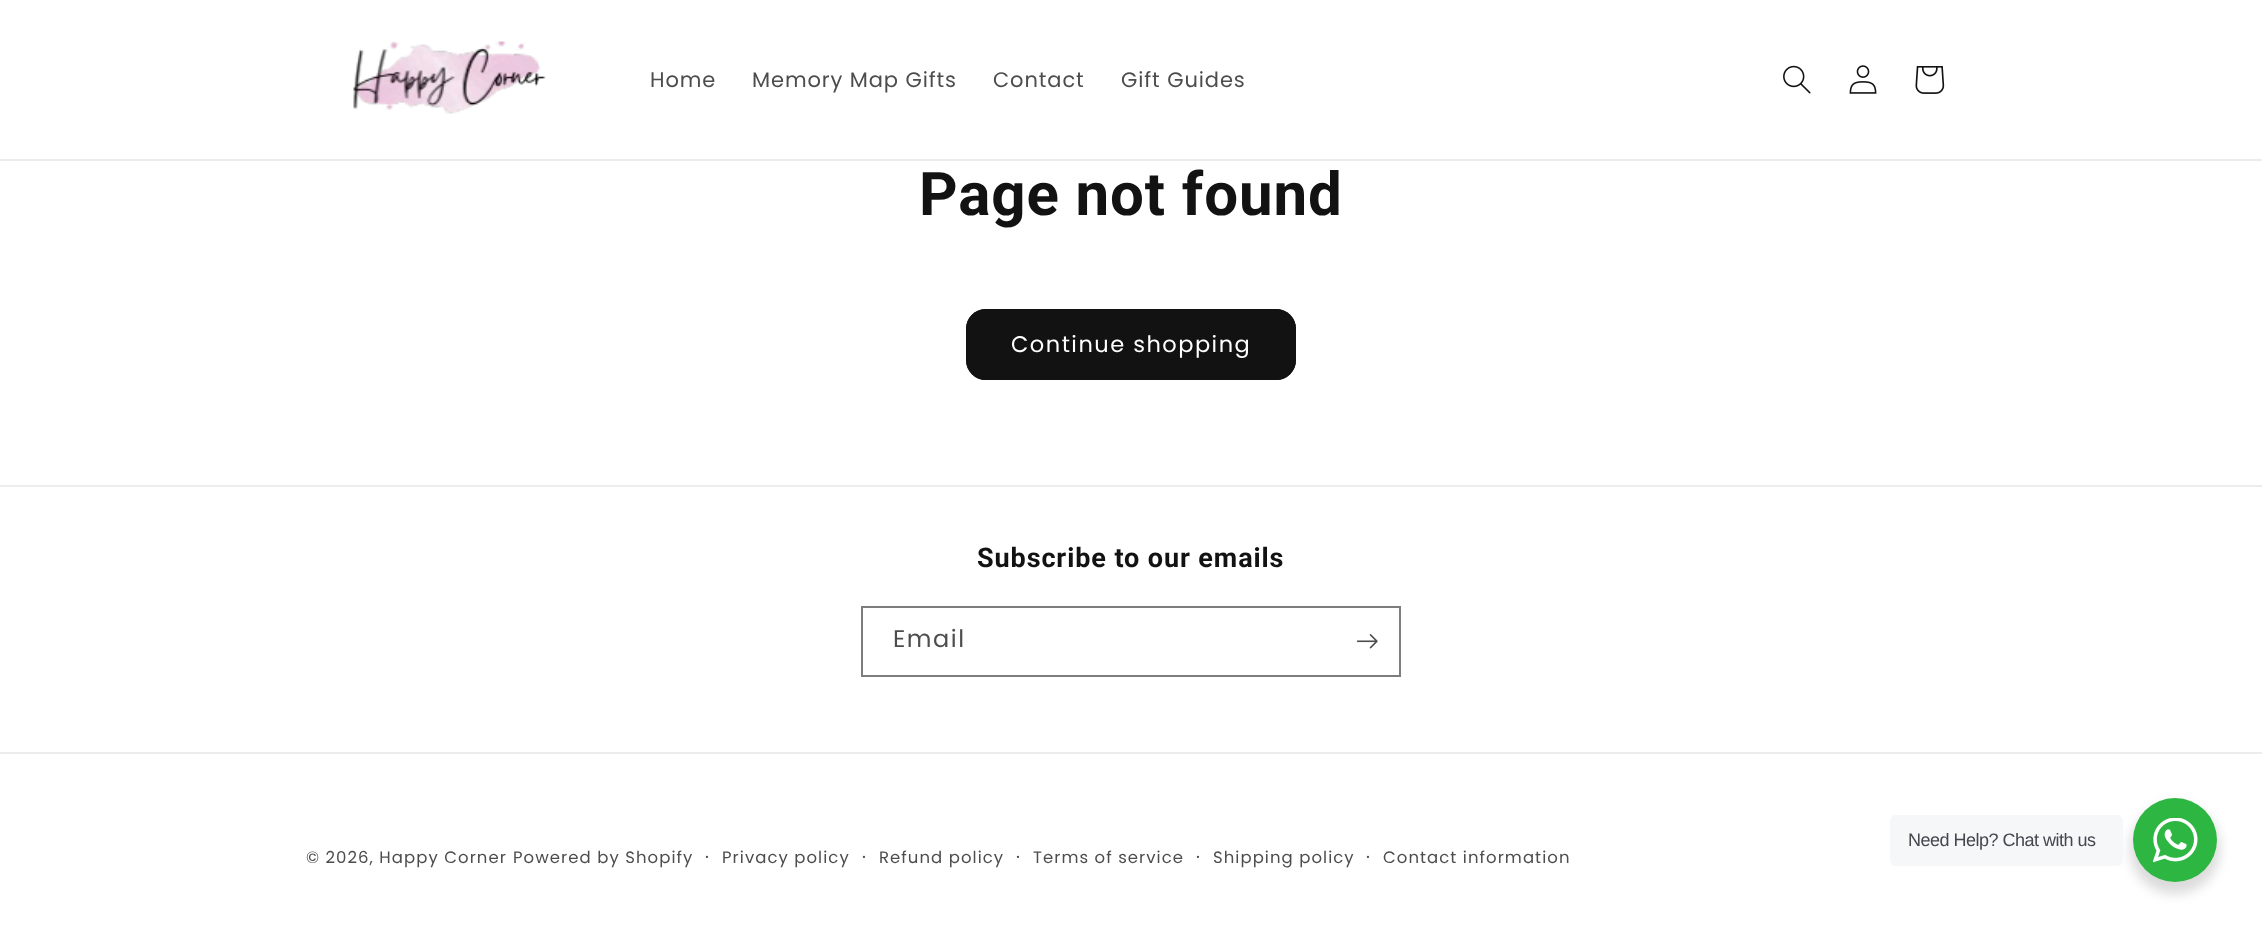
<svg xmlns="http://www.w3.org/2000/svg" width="2262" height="927">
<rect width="100%" height="100%" fill="#fff"/>
<rect y="159" width="2262" height="2" fill="#ececec"/>
<image x="353" y="41" width="193" height="73" href="media/1.png"/>
<text x="650" y="87" style="font-family:Poppins;font-size:21px;letter-spacing:0.9px;fill:#4d4d4d">Home</text>
<text x="752" y="87" style="font-family:Poppins;font-size:21px;letter-spacing:0.9px;fill:#4d4d4d">Memory Map Gifts</text>
<text x="993" y="87" style="font-family:Poppins;font-size:21px;letter-spacing:0.9px;fill:#4d4d4d">Contact</text>
<text x="1121" y="87" style="font-family:Poppins;font-size:21px;letter-spacing:0.9px;fill:#4d4d4d">Gift Guides</text>
<image x="1783" y="65" width="28" height="29" href="media/2.png"/>
<image x="1849" y="65" width="28" height="29" href="media/3.png"/>
<image x="1915" y="66" width="30" height="28" href="media/4.png"/>
<text x="919" y="215" style="font-family:Roboto;font-size:60px;font-weight:bold;letter-spacing:0.9px;fill:#121212">Page not found</text>
<rect x="966" y="309" width="330" height="71" rx="20" fill="#121212"/>
<rect x="967" y="310" width="328" height="69" rx="19" fill="none" stroke="#121212" stroke-width="2"/>
<text x="1011" y="352" style="font-family:Poppins;font-size:22.5px;letter-spacing:1.5px;fill:#fff">Continue shopping</text>
<rect y="485" width="2262" height="2" fill="#ececec"/>
<text x="977" y="567" style="font-family:Roboto;font-size:27px;font-weight:bold;letter-spacing:0.9px;fill:#121212">Subscribe to our emails</text>
<rect x="862" y="607" width="538" height="69" fill="none" stroke="#7d7d7d" stroke-width="2"/>
<text x="893" y="647" style="font-family:Poppins;font-size:24px;letter-spacing:1.5px;fill:#4d4d4d">Email</text>
<image x="1356" y="634" width="22" height="15" href="media/5.png"/>
<rect y="752" width="2262" height="2" fill="#ececec"/>
<text x="306" y="863" style="font-family:Poppins;font-size:16.5px;letter-spacing:1.05px;fill:#4d4d4d">© 2026, Happy Corner</text>
<text x="513" y="863" style="font-family:Poppins;font-size:16.5px;letter-spacing:1.05px;fill:#4d4d4d">Powered by Shopify</text>
<text x="705" y="863" style="font-family:Poppins;font-size:18px;letter-spacing:1.05px;fill:#4d4d4d">·</text>
<text x="722" y="863" style="font-family:Poppins;font-size:16.5px;letter-spacing:1.05px;fill:#4d4d4d">Privacy policy</text>
<text x="862" y="863" style="font-family:Poppins;font-size:18px;letter-spacing:1.05px;fill:#4d4d4d">·</text>
<text x="879" y="863" style="font-family:Poppins;font-size:16.5px;letter-spacing:1.05px;fill:#4d4d4d">Refund policy</text>
<text x="1016" y="863" style="font-family:Poppins;font-size:18px;letter-spacing:1.05px;fill:#4d4d4d">·</text>
<text x="1033" y="863" style="font-family:Poppins;font-size:16.5px;letter-spacing:1.05px;fill:#4d4d4d">Terms of service</text>
<text x="1196" y="863" style="font-family:Poppins;font-size:18px;letter-spacing:1.05px;fill:#4d4d4d">·</text>
<text x="1213" y="863" style="font-family:Poppins;font-size:16.5px;letter-spacing:1.05px;fill:#4d4d4d">Shipping policy</text>
<text x="1366" y="863" style="font-family:Poppins;font-size:18px;letter-spacing:1.05px;fill:#4d4d4d">·</text>
<text x="1383" y="863" style="font-family:Poppins;font-size:16.5px;letter-spacing:1.05px;fill:#4d4d4d">Contact information</text>
<rect x="2130" y="804" width="90" height="90" rx="45" fill="#00000024" filter="blur(6px)"/>
<rect x="1890" y="815" width="233" height="51" rx="6" fill="#f5f7f9"/>
<text x="1908" y="846" style="font-family:Liberation Sans;font-size:18px;letter-spacing:-0.5px;fill:#43474e">Need Help? Chat with us</text>
<circle cx="2175" cy="840" r="42" fill="#2db742"/>
<image x="2153" y="818" width="45" height="45" href="media/6.png"/>
</svg>
